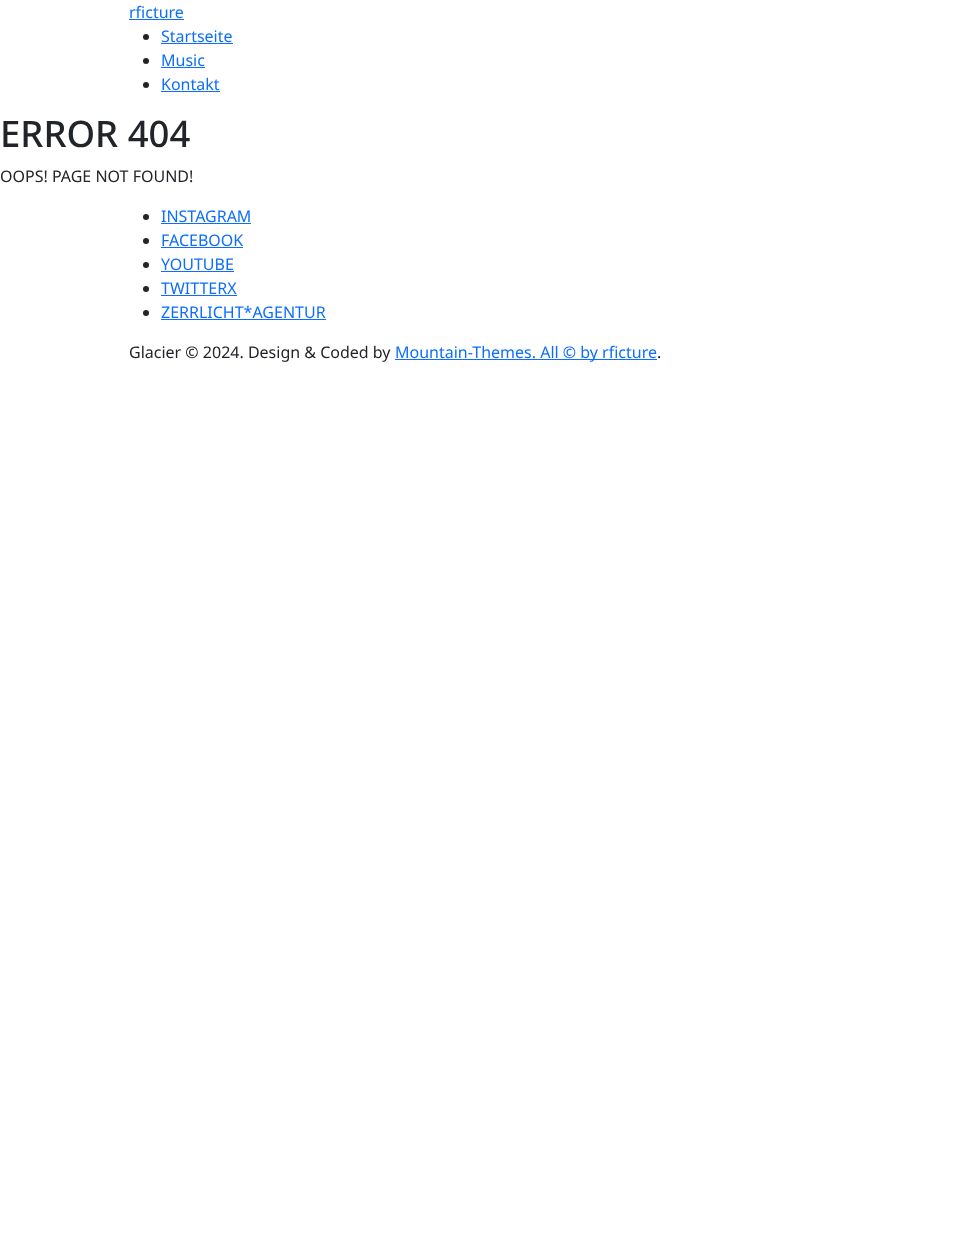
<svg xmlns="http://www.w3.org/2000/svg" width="954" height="1257">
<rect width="100%" height="100%" fill="#fff"/>
<text x="129" y="18" style="font-family:Noto Sans;font-size:16px;fill:#0d6efd">rficture</text>
<rect x="129" y="19" width="55" height="1" fill="#0d6efd"/>
<circle cx="146" cy="37" r="3" fill="#212529"/>
<text x="161" y="42" style="font-family:Noto Sans;font-size:16px;fill:#0d6efd">Startseite</text>
<rect x="161" y="43" width="72" height="1" fill="#0d6efd"/>
<circle cx="146" cy="61" r="3" fill="#212529"/>
<text x="161" y="66" style="font-family:Noto Sans;font-size:16px;fill:#0d6efd">Music</text>
<rect x="161" y="67" width="44" height="1" fill="#0d6efd"/>
<circle cx="146" cy="85" r="3" fill="#212529"/>
<text x="161" y="90" style="font-family:Noto Sans;font-size:16px;fill:#0d6efd">Kontakt</text>
<rect x="161" y="91" width="59" height="1" fill="#0d6efd"/>
<text x="0" y="147" style="font-family:Noto Sans;font-size:36.5px;font-weight:500;fill:#212529">ERROR 404</text>
<text x="0" y="182" style="font-family:Noto Sans;font-size:16px;fill:#212529">OOPS! PAGE NOT FOUND!</text>
<circle cx="146" cy="217" r="3" fill="#212529"/>
<text x="161" y="222" style="font-family:Noto Sans;font-size:16px;fill:#0d6efd">INSTAGRAM</text>
<rect x="161" y="223" width="90" height="1" fill="#0d6efd"/>
<circle cx="146" cy="241" r="3" fill="#212529"/>
<text x="161" y="246" style="font-family:Noto Sans;font-size:16px;fill:#0d6efd">FACEBOOK</text>
<rect x="161" y="247" width="82" height="1" fill="#0d6efd"/>
<circle cx="146" cy="265" r="3" fill="#212529"/>
<text x="161" y="270" style="font-family:Noto Sans;font-size:16px;fill:#0d6efd">YOUTUBE</text>
<rect x="161" y="271" width="73" height="1" fill="#0d6efd"/>
<circle cx="146" cy="289" r="3" fill="#212529"/>
<text x="161" y="294" style="font-family:Noto Sans;font-size:16px;fill:#0d6efd">TWITTERX</text>
<rect x="161" y="295" width="76" height="1" fill="#0d6efd"/>
<circle cx="146" cy="313" r="3" fill="#212529"/>
<text x="161" y="318" style="font-family:Noto Sans;font-size:16px;fill:#0d6efd">ZERRLICHT*AGENTUR</text>
<rect x="161" y="319" width="165" height="1" fill="#0d6efd"/>
<text x="129" y="358" style="font-family:Noto Sans;font-size:16px;fill:#212529">Glacier © 2024. Design &amp; Coded by</text>
<rect x="395" y="359" width="262" height="1" fill="#0d6efd"/>
<text x="395" y="358" style="font-family:Noto Sans;font-size:16px;fill:#0d6efd">Mountain-Themes. All © by rficture</text>
<text x="657" y="358" style="font-family:Noto Sans;font-size:16px;fill:#212529">.</text>
</svg>
